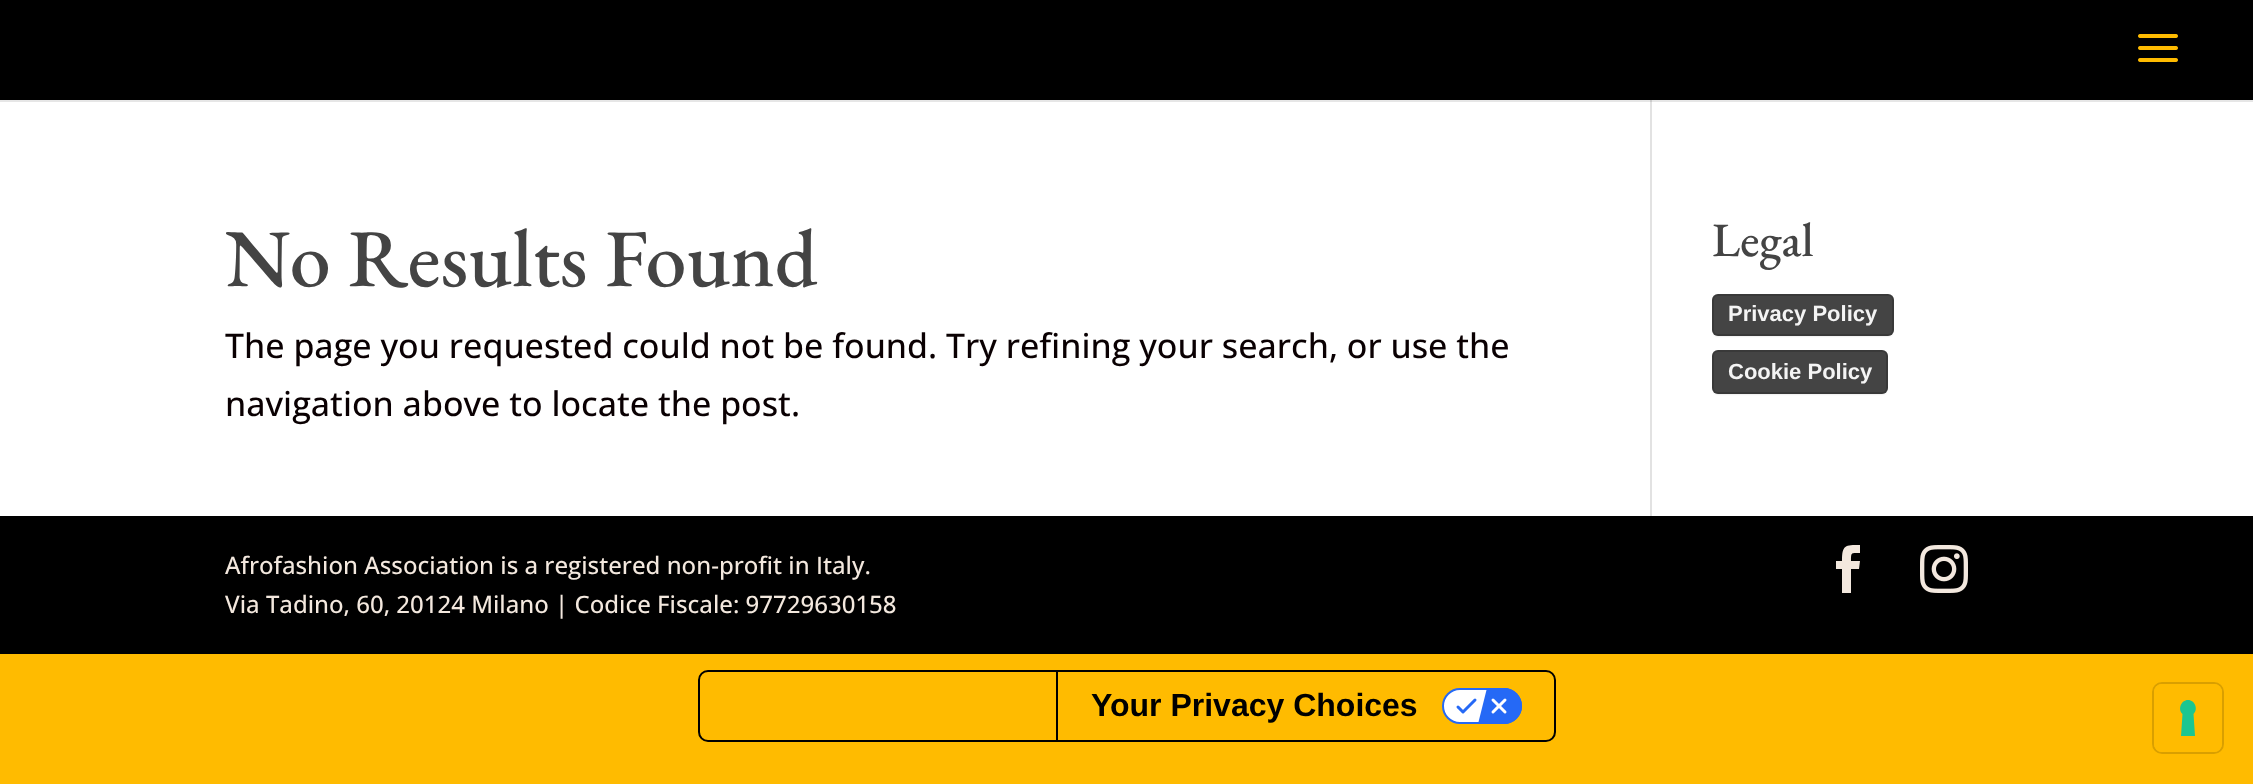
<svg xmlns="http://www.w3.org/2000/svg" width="2253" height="784">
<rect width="100%" height="100%" fill="#fb0"/>
<rect width="2253" height="100" fill="#000"/>
<image x="2138" y="34" width="40" height="28" href="media/1.png"/>
<rect y="102" width="2253" height="414" fill="#fff"/>
<rect y="100" width="2253" height="2" fill="#e6e6e6"/>
<rect x="1650" y="100" width="2" height="416" fill="#e2e2e2"/>
<rect x="1650" y="100" width="2" height="2" fill="#cbcbcb"/>
<text x="225" y="286" style="font-family:EB Garamond;font-size:82px;font-weight:500;fill:#444">No Results Found</text>
<text x="225" y="358" style="font-family:Open Sans;font-size:34px;font-weight:500;fill:#0a0002">The page you requested could not be found. Try refining your search, or use the</text>
<text x="225" y="416" style="font-family:Open Sans;font-size:34px;font-weight:500;fill:#0a0002">navigation above to locate the post.</text>
<text x="1712" y="256" style="font-family:EB Garamond;font-size:48px;font-weight:500;fill:#444">Legal</text>
<rect x="1714" y="298" width="178" height="38" rx="4" fill="#00000026" filter="blur(1px)"/>
<rect x="1712" y="294" width="182" height="42" rx="6" fill="#444"/>
<rect x="1713" y="295" width="180" height="40" rx="5" fill="none" stroke="#00000026" stroke-width="2"/>
<text x="1728" y="321" style="font-family:Liberation Sans;font-size:22px;font-weight:bold;fill:#f4f4f4">Privacy Policy</text>
<rect x="1714" y="354" width="172" height="40" rx="4" fill="#00000026" filter="blur(1px)"/>
<rect x="1712" y="350" width="176" height="44" rx="6" fill="#444"/>
<rect x="1713" y="351" width="174" height="42" rx="5" fill="none" stroke="#00000026" stroke-width="2"/>
<text x="1728" y="379" style="font-family:Liberation Sans;font-size:22px;font-weight:bold;fill:#f4f4f4">Cookie Policy</text>
<rect y="516" width="2253" height="138" fill="#000"/>
<text x="225" y="574" style="font-family:Open Sans;font-size:24px;font-weight:500;fill:#f3e8de">Afrofashion Association is a registered non-profit in Italy.</text>
<text x="225" y="613" style="font-family:Open Sans;font-size:24px;font-weight:500;fill:#f3e8de">Via Tadino, 60, 20124 Milano | Codice Fiscale: 97729630158</text>
<path d="M1842 593h9v-24h8l1-8h-9c0-9 0-8 9-8v-8c-15 0-18 0-18 16h-6v8h6z" fill="#f3e8de"/>
<image x="1920" y="545" width="48" height="48" href="media/2.png"/>
<rect x="699" y="671" width="856" height="70" rx="9" fill="none" stroke="#000" stroke-width="2"/>
<rect x="1056" y="672" width="2" height="68" fill="#000"/>
<text x="1091" y="716" style="font-family:Liberation Sans;font-size:32px;font-weight:bold;fill:#000">Your Privacy Choices</text>
<image x="1442" y="688" width="80" height="36" href="media/3.png"/>
<rect x="2153" y="683" width="70" height="70" rx="9" fill="none" stroke="#d99f00" stroke-width="2"/>
<rect x="2154" y="684" width="68" height="68" rx="8" fill="#fb0"/>
<path d="M2188 700c7 0 10.5 9.5 5.5 14l1.5 22h-14l1.5-22c-5-4.5-1.5-14 5.5-14z" fill="#1cc691" fill-rule="evenodd"/>
</svg>
